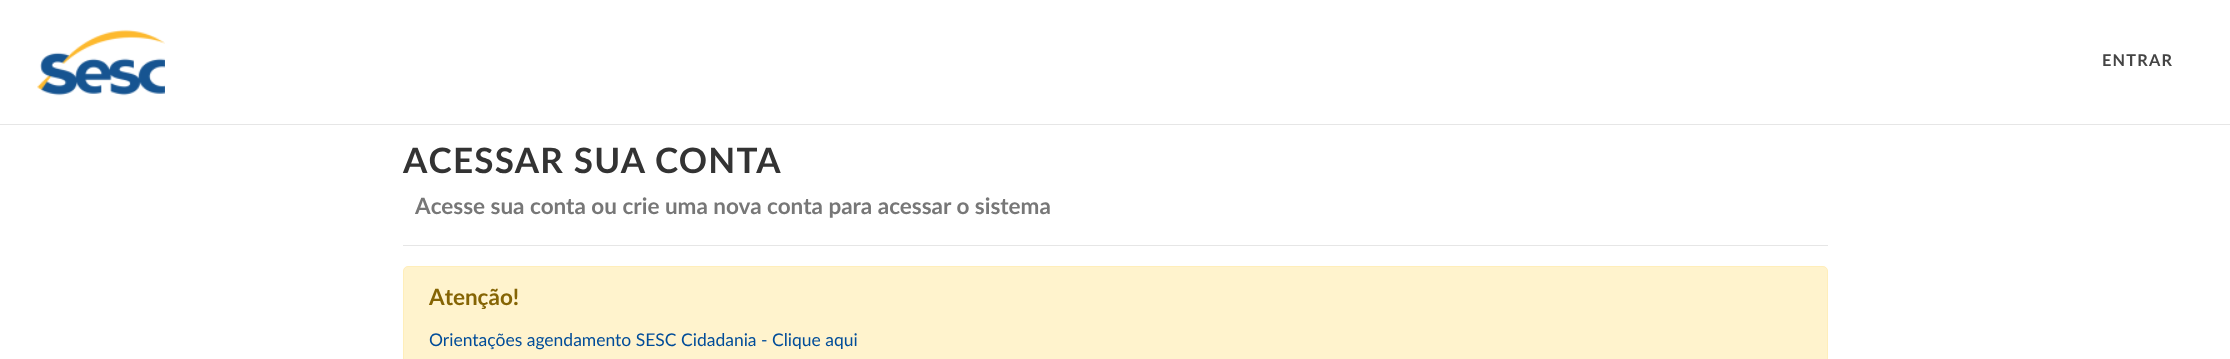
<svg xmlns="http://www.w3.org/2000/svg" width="2230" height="359">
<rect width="100%" height="100%" fill="#fff"/>
<rect y="124" width="2230" height="1" fill="#e6e6e6"/>
<image x="37" y="29" width="128" height="67" href="media/1.png"/>
<text x="2102" y="66" style="font-family:Lato;font-size:16.25px;font-weight:bold;letter-spacing:1.25px;fill:#444">ENTRAR</text>
<text x="403" y="173" style="font-family:Lato;font-size:35px;font-weight:bold;letter-spacing:1.25px;fill:#333">ACESSAR SUA CONTA</text>
<text x="415" y="214" style="font-family:Lato;font-size:22.5px;font-weight:bold;fill:#777">Acesse sua conta ou crie uma nova conta para acessar o sistema</text>
<rect x="403" y="245" width="1425" height="1" fill="#e6e6e6"/>
<rect x="403.5" y="266.5" width="1424" height="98" rx="4.5" fill="#fff3cd" stroke="#ffeeba"/>
<text x="429" y="305" style="font-family:Lato;font-size:22.5px;font-weight:bold;fill:#856404">Atenção!</text>
<text x="429" y="346" style="font-family:Lato;font-size:17.5px;fill:#004c99">Orientações agendamento SESC Cidadania - Clique aqui</text>
</svg>
